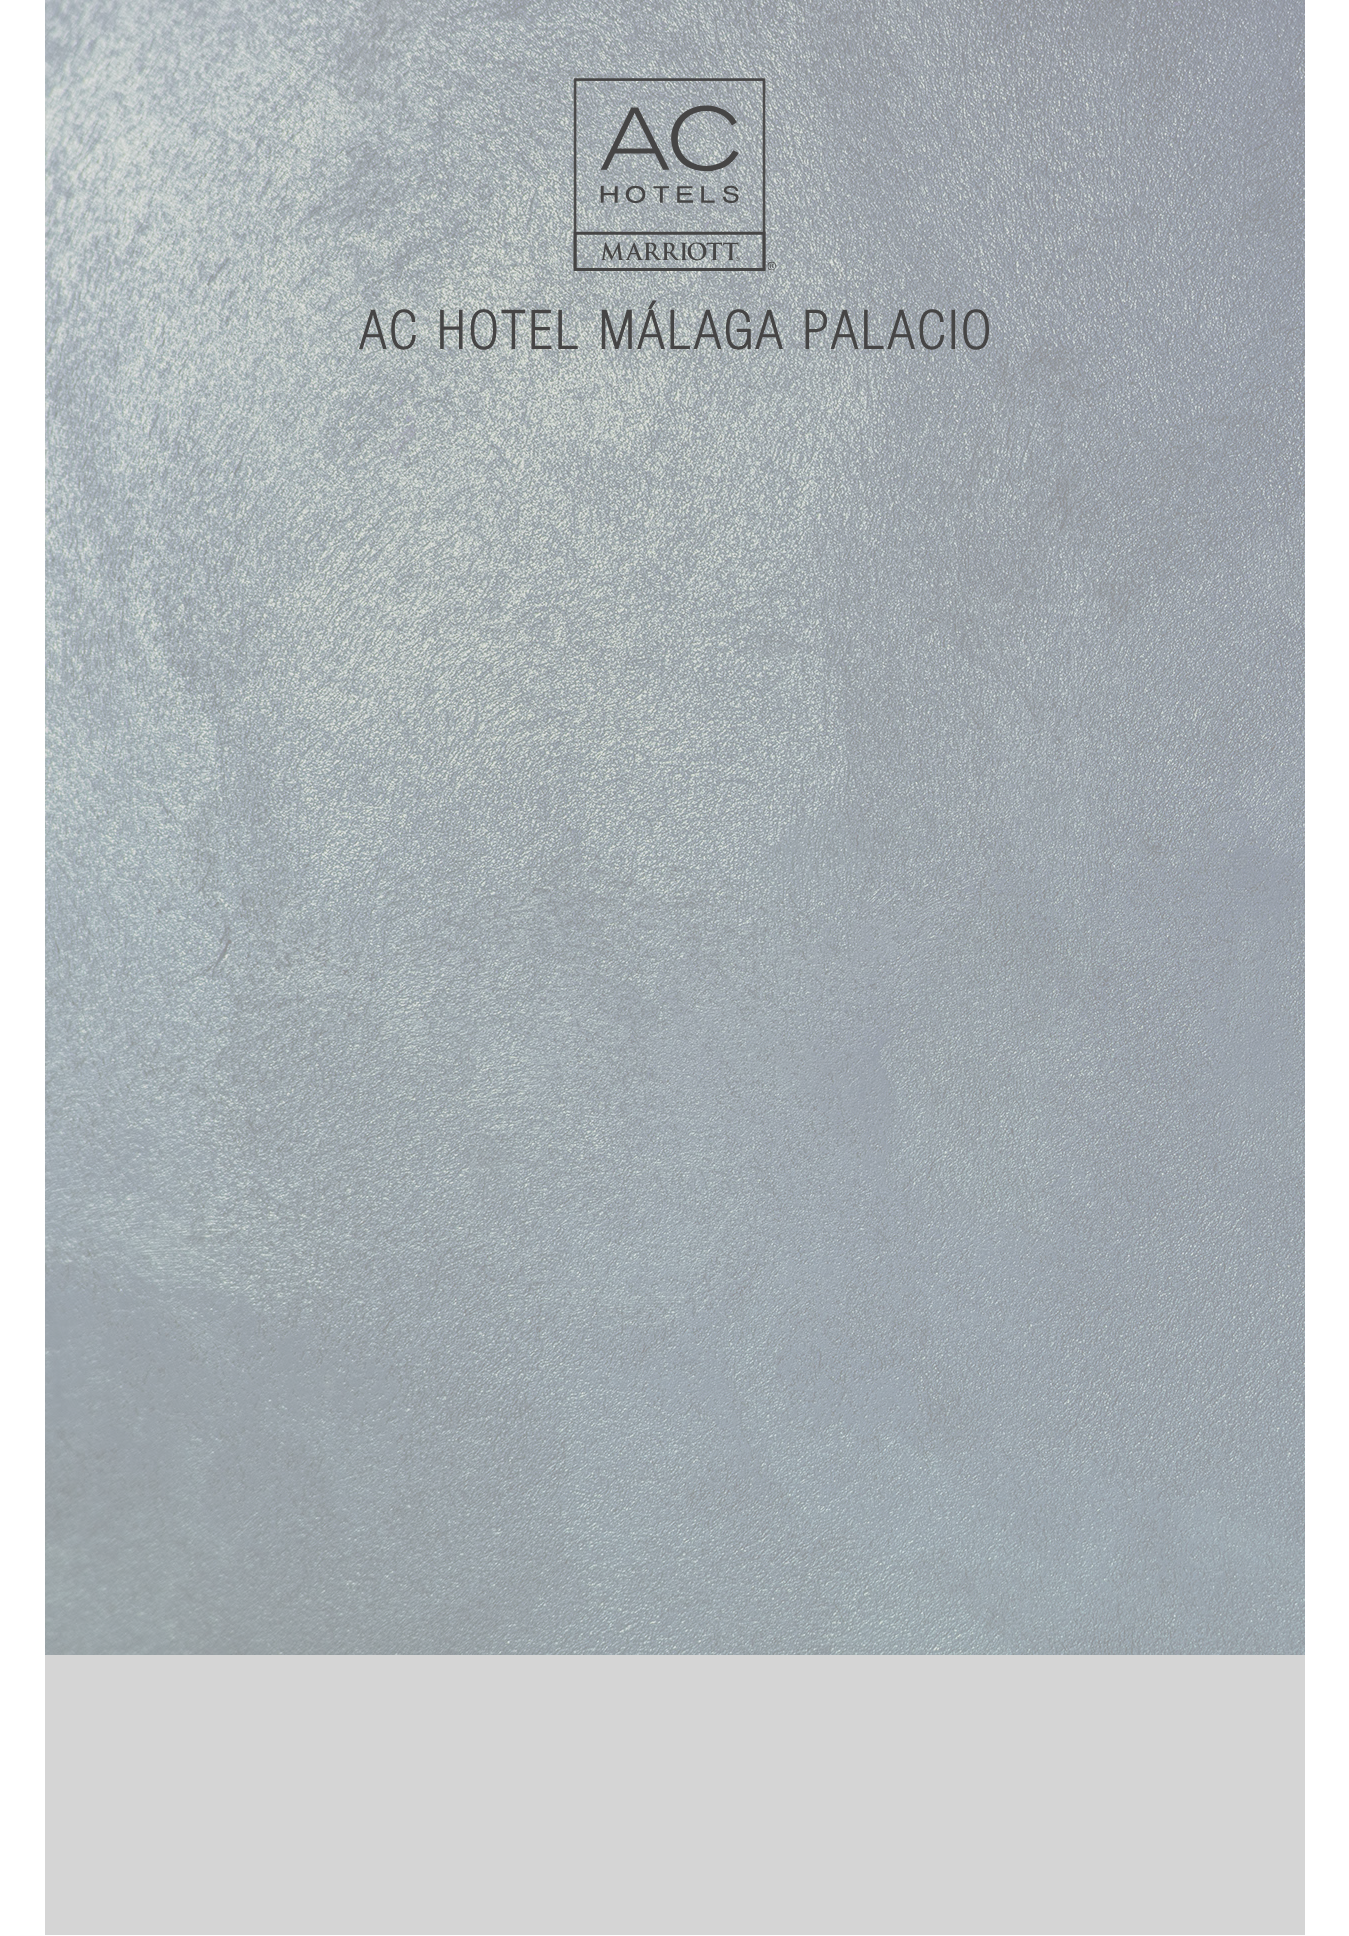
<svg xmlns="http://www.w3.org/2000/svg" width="1349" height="1936">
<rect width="100%" height="100%" fill="#fff"/>
<rect x="45" width="1260" height="1935" fill="#d5d5d5"/>
<image x="45" y="0" width="1260" height="1655" href="media/1.png"/>
<image x="359" y="78" width="630" height="272" href="media/2.png"/>
</svg>
